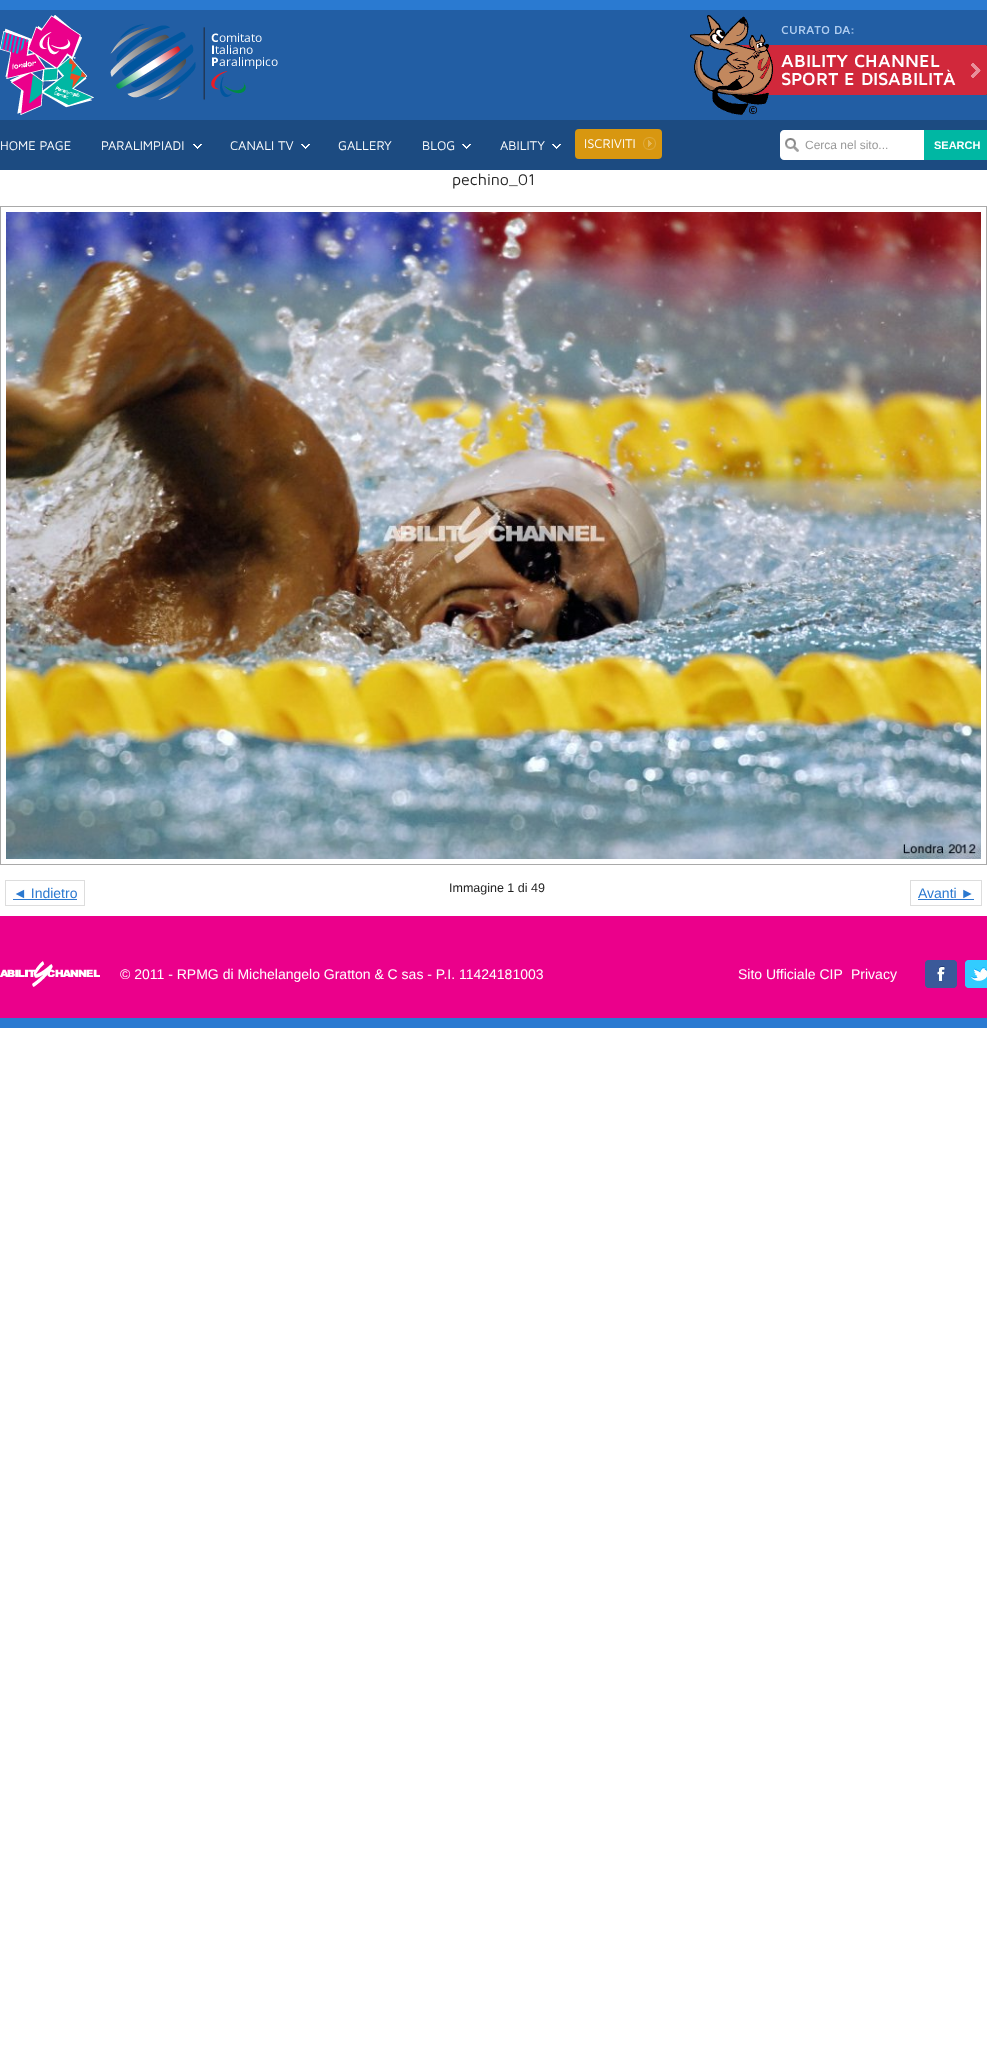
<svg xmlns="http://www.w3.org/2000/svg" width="987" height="2048">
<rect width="100%" height="100%" fill="#fff"/>
<rect y="10" width="987" height="110" fill="#225ea4"/>
<rect width="987" height="10" fill="#2a7ad1"/>
<image x="0" y="15" width="94" height="100" href="media/1.png"/>
<image x="110" y="24" width="168" height="76" href="media/2.png"/>
<image x="690" y="15" width="297" height="100" href="media/3.png"/>
<rect y="120" width="987" height="50" fill="#1c4b81"/>
<text x="0" y="150" style="font-family:Maven Pro;font-size:13px;fill:#fff">HOME PAGE</text>
<text x="101" y="150" style="font-family:Maven Pro;font-size:13px;fill:#fff">PARALIMPIADI</text>
<image x="193" y="144" width="9" height="5" href="media/4.png"/>
<text x="230" y="150" style="font-family:Maven Pro;font-size:13px;fill:#fff">CANALI TV</text>
<image x="301" y="144" width="9" height="5" href="media/5.png"/>
<text x="338" y="150" style="font-family:Maven Pro;font-size:13px;fill:#fff">GALLERY</text>
<text x="422" y="150" style="font-family:Maven Pro;font-size:13px;fill:#fff">BLOG</text>
<image x="462" y="144" width="9" height="5" href="media/6.png"/>
<text x="500" y="150" style="font-family:Maven Pro;font-size:13px;fill:#fff">ABILITY</text>
<image x="552" y="144" width="9" height="5" href="media/5.png"/>
<rect x="575" y="129" width="87" height="30" rx="4" fill="#d89710"/>
<text x="584" y="148" style="font-family:Maven Pro;font-size:13px;fill:#fff">ISCRIVITI</text>
<image x="643" y="137" width="13" height="13" href="media/7.png"/>
<path d="M784 130h140v30h-140c-2 0-4-2-4-4v-22c0-2 2-4 4-4z" fill="#fff"/>
<image x="785" y="138" width="14" height="14" href="media/8.png"/>
<text x="805" y="149" style="font-family:Liberation Sans;font-size:12px;fill:#999">Cerca nel sito...</text>
<rect x="924" y="130" width="63" height="30" fill="#00b7a3"/>
<text x="934" y="149" style="font-family:Liberation Sans;font-size:11px;font-weight:bold;fill:#fff">SEARCH</text>
<text x="452" y="185" style="font-family:Maven Pro;font-size:16px;fill:#222">pechino_01</text>
<rect x="0.5" y="206.5" width="986" height="658" fill="none" stroke="#a9a9a9"/>
<image x="6" y="212" width="975" height="647" href="media/9.png"/>
<rect x="5.5" y="880.5" width="79" height="25" fill="none" stroke="#ddd"/>
<text x="13" y="898" style="font-family:Liberation Sans;font-size:14px;fill:#2b79d0">◄ Indietro</text>
<rect x="13" y="899" width="64" height="1" fill="#2b79d0"/>
<text x="449" y="892" style="font-family:Liberation Sans;font-size:12.5px;fill:#222">Immagine 1 di 49</text>
<rect x="910.5" y="880.5" width="71" height="25" fill="none" stroke="#ddd"/>
<text x="918" y="898" style="font-family:Liberation Sans;font-size:14px;fill:#2b79d0">Avanti ►</text>
<rect x="918" y="899" width="56" height="1" fill="#2b79d0"/>
<rect y="916" width="987" height="102" fill="#eb008b"/>
<rect y="1018" width="987" height="10" fill="#2a7ad1"/>
<image x="0" y="961" width="100" height="26" href="media/10.png"/>
<text x="120" y="979" style="font-family:Liberation Sans;font-size:14px;fill:#fff">© 2011 - RPMG di Michelangelo Gratton &amp; C sas - P.I. 11424181003</text>
<text x="738" y="979" style="font-family:Liberation Sans;font-size:14px;fill:#fff">Sito Ufficiale CIP</text>
<text x="851" y="979" style="font-family:Liberation Sans;font-size:14px;fill:#fff">Privacy</text>
<image x="925" y="960" width="32" height="28" href="media/11.png"/>
<image x="965" y="960" width="22" height="28" href="media/12.png"/>
</svg>
